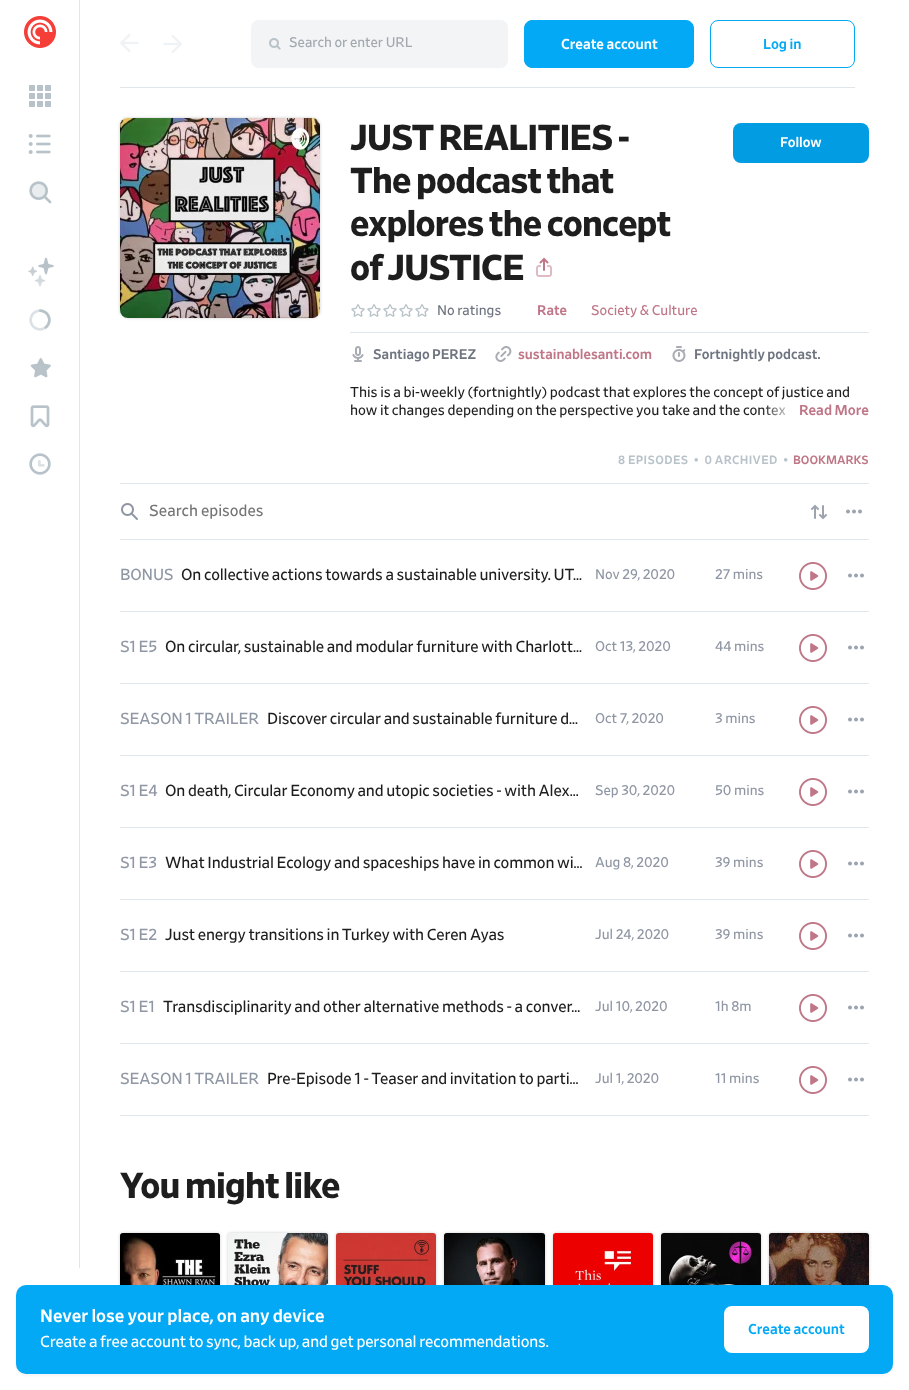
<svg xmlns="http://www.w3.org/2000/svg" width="909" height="1390">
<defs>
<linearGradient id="g1" gradientUnits="userSpaceOnUse" x1="761" y1="411" x2="869" y2="411"><stop offset="0" stop-color="#fff" stop-opacity="0"/><stop offset="0.33" stop-color="#fff"/></linearGradient>
</defs>
<rect width="100%" height="100%" fill="#fff"/>
<rect x="79" width="1" height="1268" fill="#e0e6ea"/>
<image x="24" y="16" width="32" height="32" href="media/1.png"/>
<image x="29" y="85" width="22" height="22" href="media/2.png"/>
<image x="28" y="134" width="23" height="20" href="media/3.png"/>
<image x="29" y="181" width="23" height="23" href="media/4.png"/>
<image x="28" y="257" width="26" height="30" href="media/5.png"/>
<image x="29" y="309" width="22" height="22" href="media/6.png"/>
<image x="30" y="358" width="21" height="20" href="media/7.png"/>
<image x="30" y="405" width="20" height="23" href="media/8.png"/>
<image x="29" y="453" width="22" height="22" href="media/9.png"/>
<rect x="120" y="87" width="735" height="1" fill="#e0e6ea"/>
<image x="120" y="33" width="19" height="20" href="media/10.png"/>
<image x="163" y="34" width="19" height="20" href="media/11.png"/>
<rect x="251" y="20" width="257" height="48" rx="8" fill="#f2f4f5"/>
<image x="269" y="38" width="12" height="12" href="media/12.png"/>
<rect x="251.5" y="20.5" width="256" height="47" rx="7.5" fill="none" stroke="#f2f4f5"/>
<text x="289" y="47" style="font-family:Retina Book;font-size:14px;fill:#a3a8af">Search or enter URL</text>
<rect x="524.5" y="20.5" width="169" height="47" rx="7.5" fill="#03a9f4" stroke="#03a9f4"/>
<text x="561" y="49" style="font-family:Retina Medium;font-size:14.4px;font-weight:500;fill:#fff">Create account</text>
<rect x="710.5" y="20.5" width="144" height="47" rx="7.5" fill="none" stroke="#03a9f4"/>
<text x="763" y="49" style="font-family:Retina Medium;font-size:14.4px;font-weight:500;fill:#03a9f4">Log in</text>
<rect x="120" y="118" width="200" height="200" rx="8" fill="#00000033" filter="blur(1.5px)"/>
<image x="120" y="118" width="200" height="200" href="media/13.png"/>
<text x="350" y="150" style="font-family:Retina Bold;font-size:36px;font-weight:bold;letter-spacing:-0.8px;fill:#1e1e1f">JUST REALITIES -</text>
<text x="350" y="193" style="font-family:Retina Bold;font-size:36px;font-weight:bold;letter-spacing:-0.8px;fill:#1e1e1f">The podcast that</text>
<text x="350" y="236" style="font-family:Retina Bold;font-size:36px;font-weight:bold;letter-spacing:-0.8px;fill:#1e1e1f">explores the concept</text>
<text x="350" y="280" style="font-family:Retina Bold;font-size:36px;font-weight:bold;letter-spacing:-0.8px;fill:#1e1e1f">of JUSTICE</text>
<image x="536" y="257" width="16" height="20" href="media/14.png"/>
<rect x="733" y="123" width="136" height="40" rx="8" fill="#029ce3"/>
<text x="780" y="147" style="font-family:Retina Medium;font-size:14px;font-weight:500;fill:#fff">Follow</text>
<image x="351" y="304" width="14" height="13" href="media/15.png"/>
<image x="367" y="304" width="14" height="13" href="media/15.png"/>
<image x="383" y="304" width="14" height="13" href="media/15.png"/>
<image x="399" y="304" width="14" height="13" href="media/15.png"/>
<image x="415" y="304" width="14" height="13" href="media/15.png"/>
<text x="437" y="315" style="font-family:Retina Book;font-size:14px;fill:#6f7580">No ratings</text>
<text x="537" y="315" style="font-family:Retina Medium;font-size:14px;font-weight:500;fill:#bf7687">Rate</text>
<text x="591" y="315" style="font-family:Retina Book;font-size:14px;fill:#bf7687">Society &amp; Culture</text>
<rect x="350" y="332" width="519" height="1" fill="#e0e6ea"/>
<image x="352" y="346" width="12" height="16" href="media/16.png"/>
<text x="373" y="359" style="font-family:Retina Medium;font-size:14px;font-weight:500;fill:#6f7580">Santiago PEREZ</text>
<image x="495" y="346" width="17" height="16" href="media/17.png"/>
<text x="518" y="359" style="font-family:Retina Medium;font-size:14px;font-weight:500;fill:#bf7687">sustainablesanti.com</text>
<image x="672" y="346" width="14" height="16" href="media/18.png"/>
<text x="694" y="359" style="font-family:Retina Medium;font-size:14px;font-weight:500;fill:#6f7580">Fortnightly podcast.</text>
<text x="350" y="397" style="font-family:Retina Book;font-size:14.4px;fill:#1e1e1f">This is a bi-weekly (fortnightly) podcast that explores the concept of justice and</text>
<text x="350" y="415" style="font-family:Retina Book;font-size:14.4px;fill:#1e1e1f">how it changes depending on the perspective you take and the contex</text>
<rect x="762" y="405" width="24" height="11" fill="url(#g1)"/>
<text x="799" y="415" style="font-family:Retina Medium;font-size:14.4px;font-weight:500;fill:#bf7687">Read More</text>
<text x="618" y="464" style="font-family:Retina Medium;font-size:12px;font-weight:500;letter-spacing:0.4px;fill:#b8c3c9" xml:space="preserve">8 EPISODES  •  0 ARCHIVED  •</text>
<text x="793" y="464" style="font-family:Retina Medium;font-size:12px;font-weight:500;fill:#bf7687">BOOKMARKS</text>
<rect x="120" y="483" width="749" height="1" fill="#e0e6ea"/>
<rect x="120" y="539" width="749" height="1" fill="#e0e6ea"/>
<image x="121" y="503" width="17" height="17" href="media/19.png"/>
<text x="149" y="516" style="font-family:Retina Book;font-size:16px;fill:#757575">Search episodes</text>
<image x="811" y="504" width="16" height="16" href="media/20.png"/>
<image x="846" y="509" width="16" height="5" href="media/21.png"/>
<rect x="120" y="611" width="749" height="1" fill="#e0e6ea"/>
<text x="120" y="580" style="font-family:Retina Book;font-size:16px;letter-spacing:-0.15px;fill:#8f97a4">BONUS</text>
<text x="181" y="580" style="font-family:Retina Book;font-size:16px;letter-spacing:-0.15px;fill:#1e1e1f">On collective actions towards a sustainable university. UT…</text>
<text x="595" y="579" style="font-family:Retina Book;font-size:14px;fill:#8f97a4">Nov 29, 2020</text>
<text x="715" y="579" style="font-family:Retina Book;font-size:14px;fill:#8f97a4">27 mins</text>
<image x="799" y="562" width="28" height="28" href="media/22.png"/>
<image x="848" y="573" width="16" height="5" href="media/21.png"/>
<rect x="120" y="683" width="749" height="1" fill="#e0e6ea"/>
<text x="120" y="652" style="font-family:Retina Book;font-size:16px;letter-spacing:-0.15px;fill:#8f97a4">S1 E5</text>
<text x="165" y="652" style="font-family:Retina Book;font-size:16px;letter-spacing:-0.15px;fill:#1e1e1f">On circular, sustainable and modular furniture with Charlott…</text>
<text x="595" y="651" style="font-family:Retina Book;font-size:14px;fill:#8f97a4">Oct 13, 2020</text>
<text x="715" y="651" style="font-family:Retina Book;font-size:14px;fill:#8f97a4">44 mins</text>
<image x="799" y="634" width="28" height="28" href="media/22.png"/>
<image x="848" y="645" width="16" height="5" href="media/21.png"/>
<rect x="120" y="755" width="749" height="1" fill="#e0e6ea"/>
<text x="120" y="724" style="font-family:Retina Book;font-size:16px;letter-spacing:-0.15px;fill:#8f97a4">SEASON 1 TRAILER</text>
<text x="267" y="724" style="font-family:Retina Book;font-size:16px;letter-spacing:-0.15px;fill:#1e1e1f">Discover circular and sustainable furniture d…</text>
<text x="595" y="723" style="font-family:Retina Book;font-size:14px;fill:#8f97a4">Oct 7, 2020</text>
<text x="715" y="723" style="font-family:Retina Book;font-size:14px;fill:#8f97a4">3 mins</text>
<image x="799" y="706" width="28" height="28" href="media/22.png"/>
<image x="848" y="717" width="16" height="5" href="media/21.png"/>
<rect x="120" y="827" width="749" height="1" fill="#e0e6ea"/>
<text x="120" y="796" style="font-family:Retina Book;font-size:16px;letter-spacing:-0.15px;fill:#8f97a4">S1 E4</text>
<text x="165" y="796" style="font-family:Retina Book;font-size:16px;letter-spacing:-0.15px;fill:#1e1e1f">On death, Circular Economy and utopic societies - with Alex…</text>
<text x="595" y="795" style="font-family:Retina Book;font-size:14px;fill:#8f97a4">Sep 30, 2020</text>
<text x="715" y="795" style="font-family:Retina Book;font-size:14px;fill:#8f97a4">50 mins</text>
<image x="799" y="778" width="28" height="28" href="media/22.png"/>
<image x="848" y="789" width="16" height="5" href="media/21.png"/>
<rect x="120" y="899" width="749" height="1" fill="#e0e6ea"/>
<text x="120" y="868" style="font-family:Retina Book;font-size:16px;letter-spacing:-0.15px;fill:#8f97a4">S1 E3</text>
<text x="165" y="868" style="font-family:Retina Book;font-size:16px;letter-spacing:-0.15px;fill:#1e1e1f">What Industrial Ecology and spaceships have in common wi…</text>
<text x="595" y="867" style="font-family:Retina Book;font-size:14px;fill:#8f97a4">Aug 8, 2020</text>
<text x="715" y="867" style="font-family:Retina Book;font-size:14px;fill:#8f97a4">39 mins</text>
<image x="799" y="850" width="28" height="28" href="media/22.png"/>
<image x="848" y="861" width="16" height="5" href="media/21.png"/>
<rect x="120" y="971" width="749" height="1" fill="#e0e6ea"/>
<text x="120" y="940" style="font-family:Retina Book;font-size:16px;letter-spacing:-0.15px;fill:#8f97a4">S1 E2</text>
<text x="165" y="940" style="font-family:Retina Book;font-size:16px;letter-spacing:-0.15px;fill:#1e1e1f">Just energy transitions in Turkey with Ceren Ayas</text>
<text x="595" y="939" style="font-family:Retina Book;font-size:14px;fill:#8f97a4">Jul 24, 2020</text>
<text x="715" y="939" style="font-family:Retina Book;font-size:14px;fill:#8f97a4">39 mins</text>
<image x="799" y="922" width="28" height="28" href="media/22.png"/>
<image x="848" y="933" width="16" height="5" href="media/21.png"/>
<rect x="120" y="1043" width="749" height="1" fill="#e0e6ea"/>
<text x="120" y="1012" style="font-family:Retina Book;font-size:16px;letter-spacing:-0.15px;fill:#8f97a4">S1 E1</text>
<text x="163" y="1012" style="font-family:Retina Book;font-size:16px;letter-spacing:-0.15px;fill:#1e1e1f">Transdisciplinarity and other alternative methods - a conver…</text>
<text x="595" y="1011" style="font-family:Retina Book;font-size:14px;fill:#8f97a4">Jul 10, 2020</text>
<text x="715" y="1011" style="font-family:Retina Book;font-size:14px;fill:#8f97a4">1h 8m</text>
<image x="799" y="994" width="28" height="28" href="media/22.png"/>
<image x="848" y="1005" width="16" height="5" href="media/21.png"/>
<rect x="120" y="1115" width="749" height="1" fill="#e0e6ea"/>
<text x="120" y="1084" style="font-family:Retina Book;font-size:16px;letter-spacing:-0.15px;fill:#8f97a4">SEASON 1 TRAILER</text>
<text x="267" y="1084" style="font-family:Retina Book;font-size:16px;letter-spacing:-0.15px;fill:#1e1e1f">Pre-Episode 1 - Teaser and invitation to parti…</text>
<text x="595" y="1083" style="font-family:Retina Book;font-size:14px;fill:#8f97a4">Jul 1, 2020</text>
<text x="715" y="1083" style="font-family:Retina Book;font-size:14px;fill:#8f97a4">11 mins</text>
<image x="799" y="1066" width="28" height="28" href="media/22.png"/>
<image x="848" y="1077" width="16" height="5" href="media/21.png"/>
<text x="120" y="1198" style="font-family:Retina Bold;font-size:36px;font-weight:bold;letter-spacing:-0.8px;fill:#1e1e1f">You might like</text>
<rect x="120" y="1233" width="100" height="100" rx="3" fill="#00000033" filter="blur(1.5px)"/>
<image x="120" y="1233" width="100" height="52" href="media/23.png"/>
<rect x="228" y="1233" width="100" height="100" rx="3" fill="#00000033" filter="blur(1.5px)"/>
<image x="228" y="1233" width="100" height="52" href="media/24.png"/>
<rect x="336" y="1233" width="100" height="100" rx="3" fill="#00000033" filter="blur(1.5px)"/>
<image x="336" y="1233" width="100" height="52" href="media/25.png"/>
<rect x="444" y="1233" width="101" height="100" rx="3" fill="#00000033" filter="blur(1.5px)"/>
<image x="444" y="1233" width="101" height="52" href="media/26.png"/>
<rect x="553" y="1233" width="100" height="100" rx="3" fill="#00000033" filter="blur(1.5px)"/>
<image x="553" y="1233" width="100" height="52" href="media/27.png"/>
<rect x="661" y="1233" width="100" height="100" rx="3" fill="#00000033" filter="blur(1.5px)"/>
<image x="661" y="1233" width="100" height="52" href="media/28.png"/>
<rect x="769" y="1233" width="100" height="100" rx="3" fill="#00000033" filter="blur(1.5px)"/>
<image x="769" y="1233" width="100" height="52" href="media/29.png"/>
<rect x="16" y="1287" width="877" height="89" rx="10" fill="#0000000a" filter="blur(1px)"/>
<rect x="16" y="1285" width="877" height="89" rx="10" fill="#03a9f4"/>
<text x="40" y="1322" style="font-family:Retina Medium;font-size:18px;font-weight:500;fill:#fff">Never lose your place, on any device</text>
<text x="40" y="1347" style="font-family:Retina Book;font-size:16px;letter-spacing:-0.15px;fill:#fff">Create a free account to sync, back up, and get personal recommendations.</text>
<rect x="724" y="1306" width="145" height="47" rx="8" fill="#fff"/>
<text x="748" y="1334" style="font-family:Retina Medium;font-size:14.4px;font-weight:500;fill:#03a9f4">Create account</text>
</svg>
